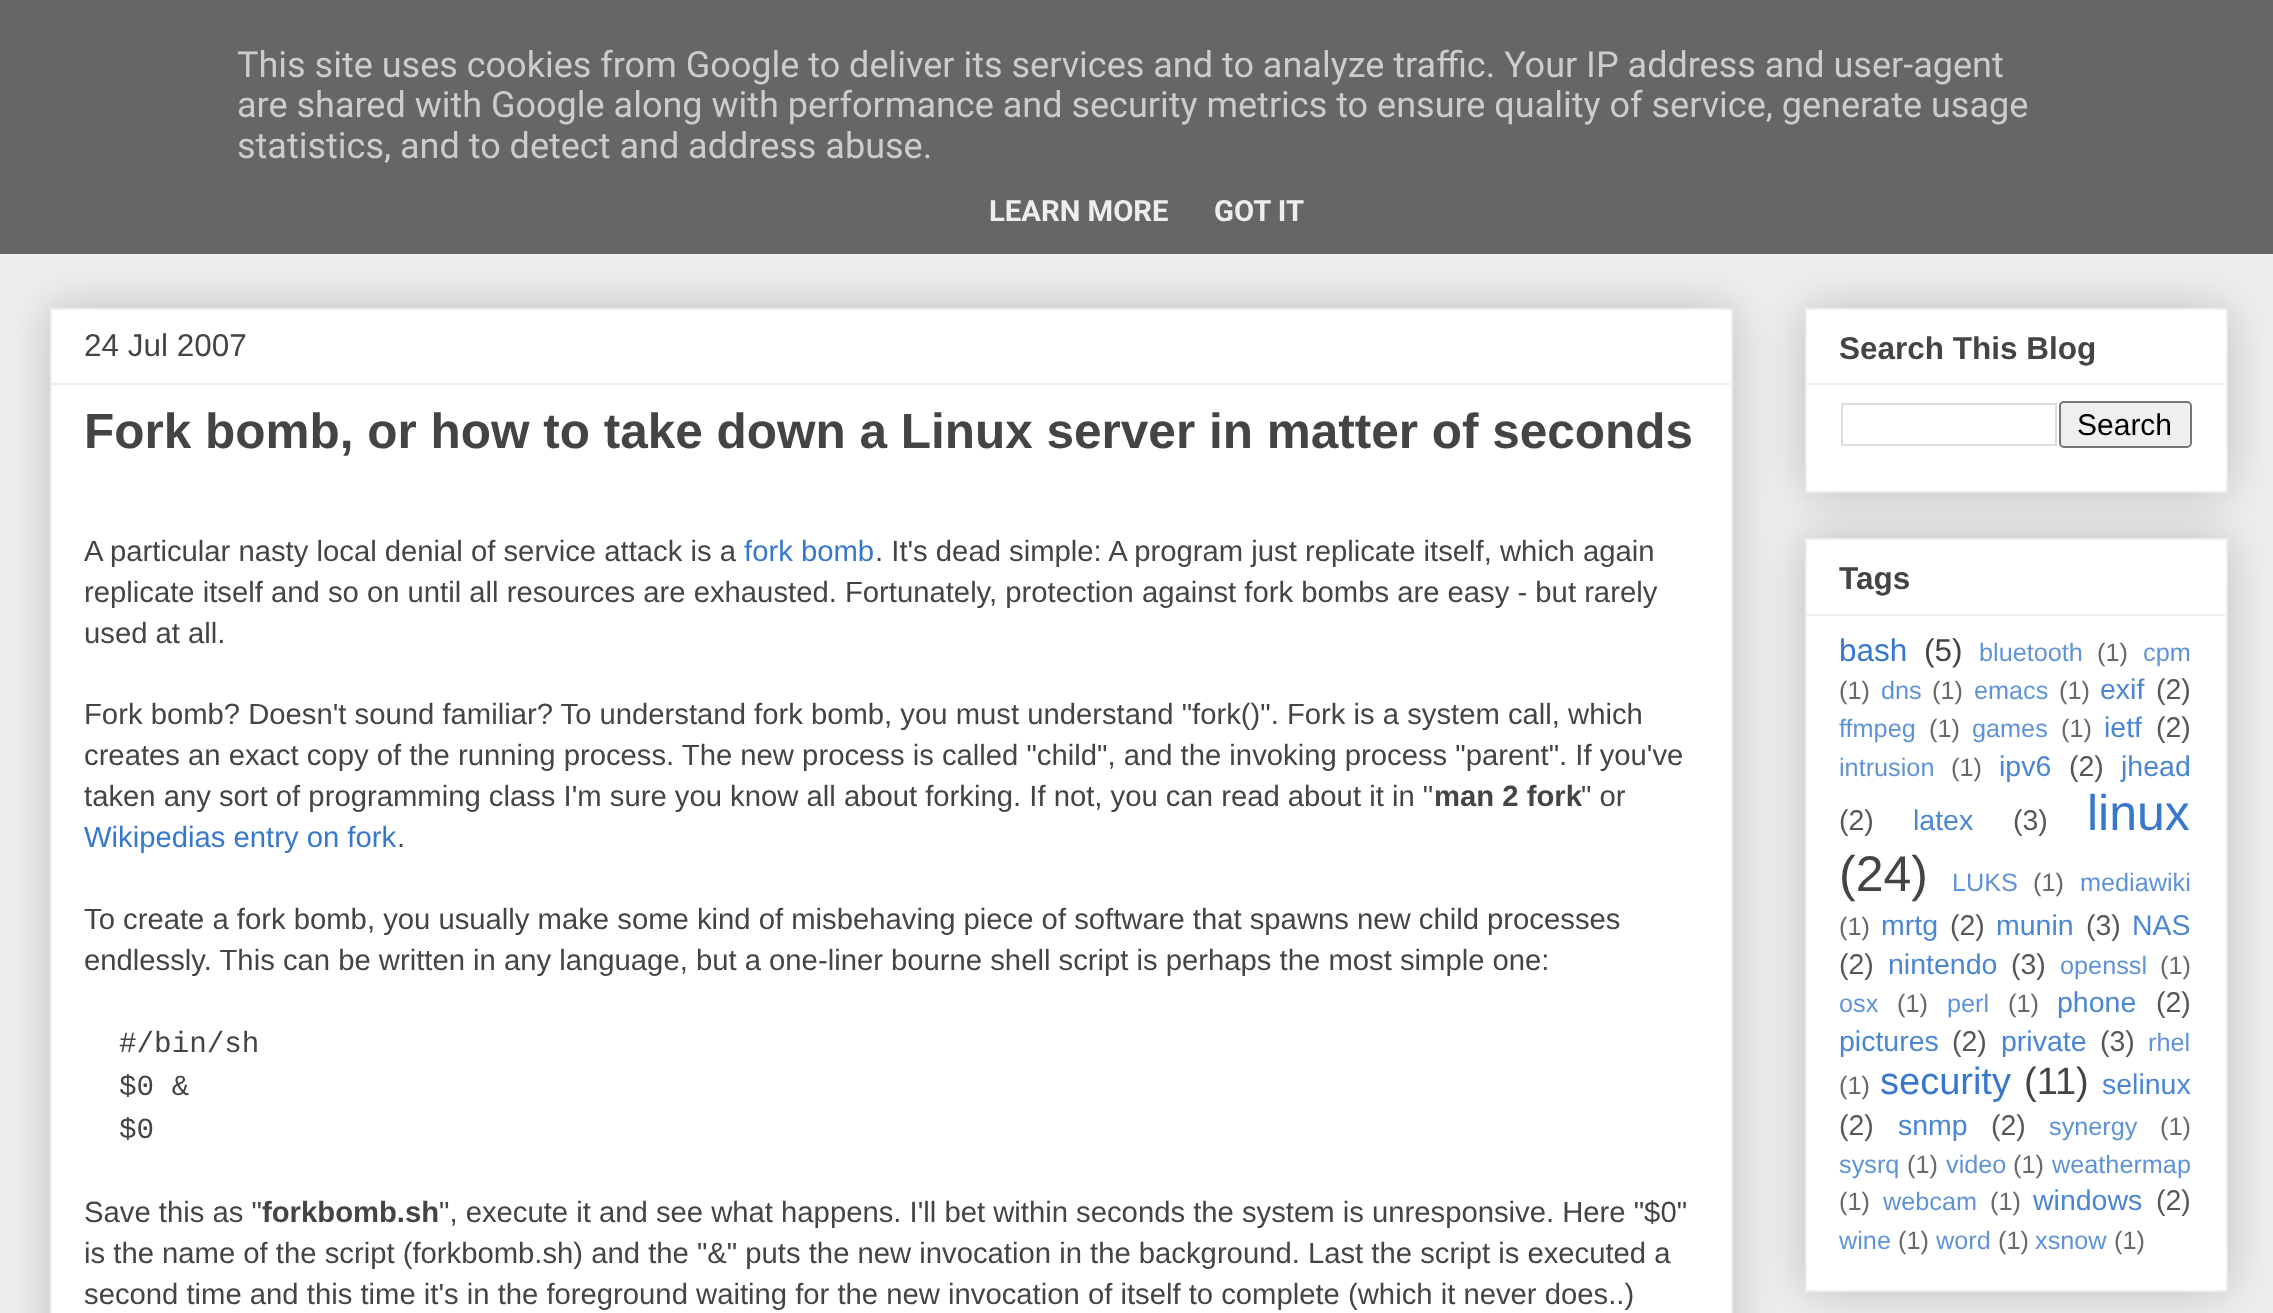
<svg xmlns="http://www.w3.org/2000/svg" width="2273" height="1313">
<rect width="100%" height="100%" fill="#eee"/>
<rect x="50" y="308" width="1683" height="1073" fill="#00000033" filter="blur(22.5px)"/>
<rect x="1805" y="308" width="423" height="185" fill="#00000033" filter="blur(22.5px)"/>
<rect width="2273" height="254" fill="#666"/>
<text x="237" y="77" style="font-family:Roboto;font-size:36px;fill:#ccc">This site uses cookies from Google to deliver its services and to analyze traffic. Your IP address and user-agent</text>
<text x="237" y="117" style="font-family:Roboto;font-size:36px;fill:#ccc">are shared with Google along with performance and security metrics to ensure quality of service, generate usage</text>
<text x="237" y="158" style="font-family:Roboto;font-size:36px;fill:#ccc">statistics, and to detect and address abuse.</text>
<text x="989" y="221" style="font-family:Roboto;font-size:29.25px;font-weight:bold;fill:#eee">LEARN MORE</text>
<text x="1214" y="221" style="font-family:Roboto;font-size:29.25px;font-weight:bold;fill:#eee">GOT IT</text>
<rect x="51" y="309" width="1681" height="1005" fill="#fff" stroke="#eee" stroke-width="2"/>
<text x="84" y="356" style="font-family:Liberation Sans;font-size:31.5px;fill:#444">24 Jul 2007</text>
<rect x="52" y="383" width="1678" height="2" fill="#eee"/>
<text x="84" y="448" style="font-family:Liberation Sans;font-size:49.5px;font-weight:bold;fill:#444">Fork bomb, or how to take down a Linux server in matter of seconds</text>
<text x="84" y="561" style="font-family:Liberation Sans;font-size:29.25px;fill:#444">A particular nasty local denial of service attack is a</text>
<text x="744" y="561" style="font-family:Liberation Sans;font-size:29.25px;fill:#3778cd">fork bomb</text>
<text x="875" y="561" style="font-family:Liberation Sans;font-size:29.25px;fill:#444">. It's dead simple: A program just replicate itself, which again</text>
<text x="84" y="602" style="font-family:Liberation Sans;font-size:29.25px;fill:#444">replicate itself and so on until all resources are exhausted. Fortunately, protection against fork bombs are easy - but rarely</text>
<text x="84" y="643" style="font-family:Liberation Sans;font-size:29.25px;fill:#444">used at all.</text>
<text x="84" y="724" style="font-family:Liberation Sans;font-size:29.25px;fill:#444">Fork bomb? Doesn't sound familiar? To understand fork bomb, you must understand "fork()". Fork is a system call, which</text>
<text x="84" y="765" style="font-family:Liberation Sans;font-size:29.25px;fill:#444">creates an exact copy of the running process. The new process is called "child", and the invoking process "parent". If you've</text>
<text x="84" y="806" style="font-family:Liberation Sans;font-size:29.25px;fill:#444">taken any sort of programming class I'm sure you know all about forking. If not, you can read about it in "</text>
<text x="1434" y="806" style="font-family:Liberation Sans;font-size:29.25px;font-weight:bold;fill:#444">man 2 fork</text>
<text x="1581" y="806" style="font-family:Liberation Sans;font-size:29.25px;fill:#444">" or</text>
<text x="84" y="847" style="font-family:Liberation Sans;font-size:29.25px;fill:#3778cd">Wikipedias entry on fork</text>
<text x="397" y="847" style="font-family:Liberation Sans;font-size:29.25px;fill:#444">.</text>
<text x="84" y="929" style="font-family:Liberation Sans;font-size:29.25px;fill:#444">To create a fork bomb, you usually make some kind of misbehaving piece of software that spawns new child processes</text>
<text x="84" y="970" style="font-family:Liberation Sans;font-size:29.25px;fill:#444">endlessly. This can be written in any language, but a one-liner bourne shell script is perhaps the most simple one:</text>
<text x="119" y="1052" style="font-family:Liberation Mono;font-size:29.25px;fill:#444">#/bin/sh</text>
<text x="119" y="1095" style="font-family:Liberation Mono;font-size:29.25px;fill:#444">$0 &amp;</text>
<text x="119" y="1138" style="font-family:Liberation Mono;font-size:29.25px;fill:#444">$0</text>
<text x="84" y="1222" style="font-family:Liberation Sans;font-size:29.25px;fill:#444">Save this as "</text>
<text x="262" y="1222" style="font-family:Liberation Sans;font-size:29.25px;font-weight:bold;fill:#444">forkbomb.sh</text>
<text x="439" y="1222" style="font-family:Liberation Sans;font-size:29.25px;fill:#444">", execute it and see what happens. I'll bet within seconds the system is unresponsive. Here "$0"</text>
<text x="84" y="1263" style="font-family:Liberation Sans;font-size:29.25px;fill:#444">is the name of the script (forkbomb.sh) and the "&amp;" puts the new invocation in the background. Last the script is executed a</text>
<text x="84" y="1304" style="font-family:Liberation Sans;font-size:29.25px;fill:#444">second time and this time it's in the foreground waiting for the new invocation of itself to complete (which it never does..)</text>
<rect x="1806" y="309" width="421" height="183" fill="#fff" stroke="#eee" stroke-width="2"/>
<text x="1839" y="359" style="font-family:Liberation Sans;font-size:31.5px;font-weight:bold;fill:#444">Search This Blog</text>
<rect x="1807" y="383" width="418" height="2" fill="#eee"/>
<rect x="1842" y="404" width="214" height="41" fill="none" stroke="#ddd" stroke-width="2"/>
<rect x="2060" y="402" width="131" height="45" rx="4" fill="#efefef" stroke="#767676" stroke-width="2"/>
<text x="2077" y="435" style="font-family:Liberation Sans;font-size:30px;fill:#000">Search</text>
<rect x="1805" y="538" width="423" height="754" fill="#00000033" filter="blur(22.5px)"/>
<rect x="1806" y="539" width="421" height="752" fill="#fff" stroke="#eee" stroke-width="2"/>
<text x="1839" y="589" style="font-family:Liberation Sans;font-size:31.5px;font-weight:bold;fill:#444">Tags</text>
<rect x="1807" y="614" width="418" height="2" fill="#eee"/>
<text x="1839" y="661" style="font-family:Liberation Sans;font-size:31.5px;fill:#3778cd">bash</text>
<text x="1924" y="661" style="font-family:Liberation Sans;font-size:31.5px;fill:#444">(5)</text>
<text x="1979" y="661" style="font-family:Liberation Sans;font-size:25.25px;fill:#5f93d7">bluetooth</text>
<text x="2097" y="661" style="font-family:Liberation Sans;font-size:25.25px;fill:#696969">(1)</text>
<text x="2143" y="661" style="font-family:Liberation Sans;font-size:25.25px;fill:#5f93d7">cpm</text>
<text x="1839" y="699" style="font-family:Liberation Sans;font-size:25.25px;fill:#696969">(1)</text>
<text x="1881" y="699" style="font-family:Liberation Sans;font-size:25.25px;fill:#5f93d7">dns</text>
<text x="1932" y="699" style="font-family:Liberation Sans;font-size:25.25px;fill:#696969">(1)</text>
<text x="1974" y="699" style="font-family:Liberation Sans;font-size:25.25px;fill:#5f93d7">emacs</text>
<text x="2059" y="699" style="font-family:Liberation Sans;font-size:25.25px;fill:#696969">(1)</text>
<text x="2100" y="699" style="font-family:Liberation Sans;font-size:28.5px;fill:#4b86d2">exif</text>
<text x="2156" y="699" style="font-family:Liberation Sans;font-size:28.5px;fill:#575757">(2)</text>
<text x="1839" y="737" style="font-family:Liberation Sans;font-size:25.25px;fill:#5f93d7">ffmpeg</text>
<text x="1929" y="737" style="font-family:Liberation Sans;font-size:25.25px;fill:#696969">(1)</text>
<text x="1972" y="737" style="font-family:Liberation Sans;font-size:25.25px;fill:#5f93d7">games</text>
<text x="2061" y="737" style="font-family:Liberation Sans;font-size:25.25px;fill:#696969">(1)</text>
<text x="2104" y="737" style="font-family:Liberation Sans;font-size:28.5px;fill:#4b86d2">ietf</text>
<text x="2156" y="737" style="font-family:Liberation Sans;font-size:28.5px;fill:#575757">(2)</text>
<text x="1839" y="776" style="font-family:Liberation Sans;font-size:25.25px;fill:#5f93d7">intrusion</text>
<text x="1951" y="776" style="font-family:Liberation Sans;font-size:25.25px;fill:#696969">(1)</text>
<text x="1999" y="776" style="font-family:Liberation Sans;font-size:28.5px;fill:#4b86d2">ipv6</text>
<text x="2069" y="776" style="font-family:Liberation Sans;font-size:28.5px;fill:#575757">(2)</text>
<text x="2121" y="776" style="font-family:Liberation Sans;font-size:28.5px;fill:#4b86d2">jhead</text>
<text x="1839" y="830" style="font-family:Liberation Sans;font-size:28.5px;fill:#575757">(2)</text>
<text x="1913" y="830" style="font-family:Liberation Sans;font-size:28.5px;fill:#4b86d2">latex</text>
<text x="2013" y="830" style="font-family:Liberation Sans;font-size:28.5px;fill:#575757">(3)</text>
<text x="2087" y="830" style="font-family:Liberation Sans;font-size:50px;fill:#3778cd">linux</text>
<text x="1839" y="891" style="font-family:Liberation Sans;font-size:50px;fill:#444">(24)</text>
<text x="1952" y="891" style="font-family:Liberation Sans;font-size:25.25px;fill:#5f93d7">LUKS</text>
<text x="2033" y="891" style="font-family:Liberation Sans;font-size:25.25px;fill:#696969">(1)</text>
<text x="2080" y="891" style="font-family:Liberation Sans;font-size:25.25px;fill:#5f93d7">mediawiki</text>
<text x="1839" y="935" style="font-family:Liberation Sans;font-size:25.25px;fill:#696969">(1)</text>
<text x="1881" y="935" style="font-family:Liberation Sans;font-size:28.5px;fill:#4b86d2">mrtg</text>
<text x="1950" y="935" style="font-family:Liberation Sans;font-size:28.5px;fill:#575757">(2)</text>
<text x="1996" y="935" style="font-family:Liberation Sans;font-size:28.5px;fill:#4b86d2">munin</text>
<text x="2086" y="935" style="font-family:Liberation Sans;font-size:28.5px;fill:#575757">(3)</text>
<text x="2132" y="935" style="font-family:Liberation Sans;font-size:28.5px;fill:#4b86d2">NAS</text>
<text x="1839" y="974" style="font-family:Liberation Sans;font-size:28.5px;fill:#575757">(2)</text>
<text x="1888" y="974" style="font-family:Liberation Sans;font-size:28.5px;fill:#4b86d2">nintendo</text>
<text x="2011" y="974" style="font-family:Liberation Sans;font-size:28.5px;fill:#575757">(3)</text>
<text x="2060" y="974" style="font-family:Liberation Sans;font-size:25.25px;fill:#5f93d7">openssl</text>
<text x="2160" y="974" style="font-family:Liberation Sans;font-size:25.25px;fill:#696969">(1)</text>
<text x="1839" y="1012" style="font-family:Liberation Sans;font-size:25.25px;fill:#5f93d7">osx</text>
<text x="1897" y="1012" style="font-family:Liberation Sans;font-size:25.25px;fill:#696969">(1)</text>
<text x="1947" y="1012" style="font-family:Liberation Sans;font-size:25.25px;fill:#5f93d7">perl</text>
<text x="2008" y="1012" style="font-family:Liberation Sans;font-size:25.25px;fill:#696969">(1)</text>
<text x="2057" y="1012" style="font-family:Liberation Sans;font-size:28.5px;fill:#4b86d2">phone</text>
<text x="2156" y="1012" style="font-family:Liberation Sans;font-size:28.5px;fill:#575757">(2)</text>
<text x="1839" y="1051" style="font-family:Liberation Sans;font-size:28.5px;fill:#4b86d2">pictures</text>
<text x="1952" y="1051" style="font-family:Liberation Sans;font-size:28.5px;fill:#575757">(2)</text>
<text x="2001" y="1051" style="font-family:Liberation Sans;font-size:28.5px;fill:#4b86d2">private</text>
<text x="2100" y="1051" style="font-family:Liberation Sans;font-size:28.5px;fill:#575757">(3)</text>
<text x="2148" y="1051" style="font-family:Liberation Sans;font-size:25.25px;fill:#5f93d7">rhel</text>
<text x="1839" y="1094" style="font-family:Liberation Sans;font-size:25.25px;fill:#696969">(1)</text>
<text x="1880" y="1094" style="font-family:Liberation Sans;font-size:38px;fill:#3778cd">security</text>
<text x="2024" y="1094" style="font-family:Liberation Sans;font-size:38px;fill:#444">(11)</text>
<text x="2102" y="1094" style="font-family:Liberation Sans;font-size:28.5px;fill:#4b86d2">selinux</text>
<text x="1839" y="1135" style="font-family:Liberation Sans;font-size:28.5px;fill:#575757">(2)</text>
<text x="1898" y="1135" style="font-family:Liberation Sans;font-size:28.5px;fill:#4b86d2">snmp</text>
<text x="1991" y="1135" style="font-family:Liberation Sans;font-size:28.5px;fill:#575757">(2)</text>
<text x="2049" y="1135" style="font-family:Liberation Sans;font-size:25.25px;fill:#5f93d7">synergy</text>
<text x="2160" y="1135" style="font-family:Liberation Sans;font-size:25.25px;fill:#696969">(1)</text>
<text x="1839" y="1173" style="font-family:Liberation Sans;font-size:25.25px;fill:#5f93d7">sysrq</text>
<text x="1907" y="1173" style="font-family:Liberation Sans;font-size:25.25px;fill:#696969">(1)</text>
<text x="1946" y="1173" style="font-family:Liberation Sans;font-size:25.25px;fill:#5f93d7">video</text>
<text x="2013" y="1173" style="font-family:Liberation Sans;font-size:25.25px;fill:#696969">(1)</text>
<text x="2052" y="1173" style="font-family:Liberation Sans;font-size:25.25px;fill:#5f93d7">weathermap</text>
<text x="1839" y="1210" style="font-family:Liberation Sans;font-size:25.25px;fill:#696969">(1)</text>
<text x="1883" y="1210" style="font-family:Liberation Sans;font-size:25.25px;fill:#5f93d7">webcam</text>
<text x="1990" y="1210" style="font-family:Liberation Sans;font-size:25.25px;fill:#696969">(1)</text>
<text x="2033" y="1210" style="font-family:Liberation Sans;font-size:28.5px;fill:#4b86d2">windows</text>
<text x="2156" y="1210" style="font-family:Liberation Sans;font-size:28.5px;fill:#575757">(2)</text>
<text x="1839" y="1249" style="font-family:Liberation Sans;font-size:25.25px;fill:#5f93d7">wine</text>
<text x="1898" y="1249" style="font-family:Liberation Sans;font-size:25.25px;fill:#696969">(1)</text>
<text x="1936" y="1249" style="font-family:Liberation Sans;font-size:25.25px;fill:#5f93d7">word</text>
<text x="1998" y="1249" style="font-family:Liberation Sans;font-size:25.25px;fill:#696969">(1)</text>
<text x="2035" y="1249" style="font-family:Liberation Sans;font-size:25.25px;fill:#5f93d7">xsnow</text>
<text x="2114" y="1249" style="font-family:Liberation Sans;font-size:25.25px;fill:#696969">(1)</text>
</svg>
